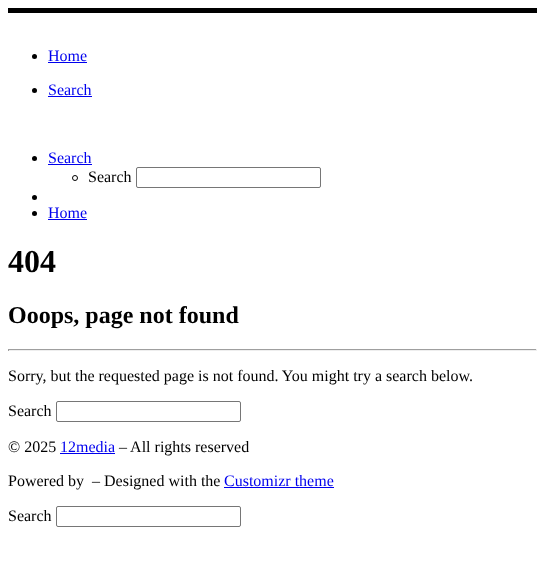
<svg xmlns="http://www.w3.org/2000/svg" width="545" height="584">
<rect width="100%" height="100%" fill="#fff"/>
<rect x="8" y="8" width="529" height="5" fill="#000"/>
<circle cx="34.5" cy="56.5" r="2.5" fill="#000"/>
<text x="48" y="61" style="font-family:Liberation Serif;font-size:16px;fill:#00e">Home</text>
<rect x="48" y="62" width="39" height="1" fill="#00e"/>
<circle cx="34.5" cy="90.5" r="2.5" fill="#000"/>
<text x="48" y="95" style="font-family:Liberation Serif;font-size:16px;fill:#00e">Search</text>
<rect x="48" y="96" width="44" height="1" fill="#00e"/>
<circle cx="34.5" cy="158.5" r="2.5" fill="#000"/>
<text x="48" y="163" style="font-family:Liberation Serif;font-size:16px;fill:#00e">Search</text>
<rect x="48" y="164" width="44" height="1" fill="#00e"/>
<circle cx="75" cy="178" r="2.5" fill="none" stroke="#000"/>
<text x="88" y="182" style="font-family:Liberation Serif;font-size:16px;fill:#000">Search</text>
<rect x="136.5" y="167.5" width="184" height="20" rx="1.5" fill="none" stroke="#767676"/>
<circle cx="34.5" cy="197.5" r="2.5" fill="#000"/>
<circle cx="34.5" cy="213.5" r="2.5" fill="#000"/>
<text x="48" y="218" style="font-family:Liberation Serif;font-size:16px;fill:#00e">Home</text>
<rect x="48" y="219" width="39" height="1" fill="#00e"/>
<text x="8" y="272" style="font-family:Liberation Serif;font-size:32px;font-weight:bold;fill:#000">404</text>
<text x="8" y="323" style="font-family:Liberation Serif;font-size:24px;font-weight:bold;fill:#000">Ooops, page not found</text>
<rect x="8" y="349" width="529" height="1" fill="#9f9f9f"/>
<rect x="536" y="349" width="1" height="2" fill="#eee"/>
<rect x="8" y="350" width="529" height="1" fill="#eee"/>
<rect x="8" y="349" width="1" height="2" fill="#9f9f9f"/>
<text x="8" y="381" style="font-family:Liberation Serif;font-size:16px;fill:#000">Sorry, but the requested page is not found. You might try a search below.</text>
<text x="8" y="416" style="font-family:Liberation Serif;font-size:16px;fill:#000">Search</text>
<rect x="56.5" y="401.5" width="184" height="20" rx="1.5" fill="none" stroke="#767676"/>
<text x="8" y="452" style="font-family:Liberation Serif;font-size:16px;fill:#000">© 2025</text>
<text x="60" y="452" style="font-family:Liberation Serif;font-size:16px;fill:#00e">12media</text>
<rect x="60" y="453" width="55" height="1" fill="#00e"/>
<text x="119" y="452" style="font-family:Liberation Serif;font-size:16px;fill:#000">– All rights reserved</text>
<text x="8" y="486" style="font-family:Liberation Serif;font-size:16px;fill:#000">Powered by</text>
<text x="92" y="486" style="font-family:Liberation Serif;font-size:16px;fill:#000">– Designed with the</text>
<text x="224" y="486" style="font-family:Liberation Serif;font-size:16px;fill:#00e">Customizr theme</text>
<rect x="224" y="487" width="110" height="1" fill="#00e"/>
<text x="8" y="521" style="font-family:Liberation Serif;font-size:16px;fill:#000">Search</text>
<rect x="56.5" y="506.5" width="184" height="20" rx="1.5" fill="none" stroke="#767676"/>
</svg>
